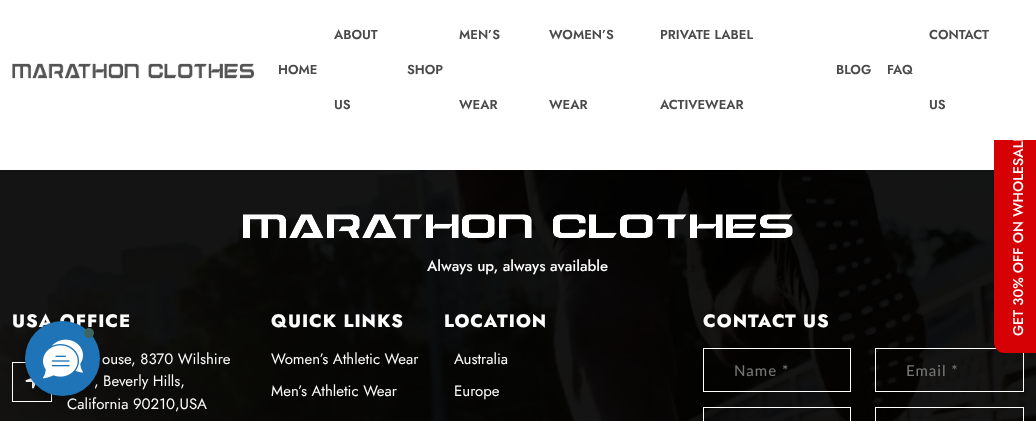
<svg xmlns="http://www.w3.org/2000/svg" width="1036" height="421">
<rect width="100%" height="100%" fill="#fff"/>
<image x="0" y="170" width="1036" height="251" href="media/2.png"/>
<rect x="875.5" y="348.5" width="148" height="43" fill="none" stroke="#fff"/>
<path d="M994 342v-216c0-6 4-10 10-10h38v237h-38c-6 0-10-5-10-11z" fill="#d50105"/>
<text x="1023" y="336" transform="rotate(-90 1023 336)" style="font-family:Jost;font-size:14px;font-weight:500;fill:#fdfdfd">GET 30% OFF ON WHOLESALE</text>
<rect x="994" y="116" width="42" height="24" fill="#fff"/>
<image x="12" y="63" width="242" height="16" href="media/1.png"/>
<text x="278" y="74" style="font-family:Jost;font-size:13px;font-weight:600;fill:#4a4a4a">HOME</text>
<text x="334" y="39" style="font-family:Jost;font-size:13px;font-weight:600;fill:#4a4a4a">ABOUT</text>
<text x="334" y="109" style="font-family:Jost;font-size:13px;font-weight:600;fill:#4a4a4a">US</text>
<text x="407" y="74" style="font-family:Jost;font-size:13px;font-weight:600;fill:#4a4a4a">SHOP</text>
<text x="459" y="39" style="font-family:Jost;font-size:13px;font-weight:600;fill:#4a4a4a">MEN’S</text>
<text x="459" y="109" style="font-family:Jost;font-size:13px;font-weight:600;fill:#4a4a4a">WEAR</text>
<text x="549" y="39" style="font-family:Jost;font-size:13px;font-weight:600;fill:#4a4a4a">WOMEN’S</text>
<text x="549" y="109" style="font-family:Jost;font-size:13px;font-weight:600;fill:#4a4a4a">WEAR</text>
<text x="660" y="39" style="font-family:Jost;font-size:13px;font-weight:600;fill:#4a4a4a">PRIVATE LABEL</text>
<text x="660" y="109" style="font-family:Jost;font-size:13px;font-weight:600;fill:#4a4a4a">ACTIVEWEAR</text>
<text x="836" y="74" style="font-family:Jost;font-size:13px;font-weight:600;fill:#4a4a4a">BLOG</text>
<text x="887" y="74" style="font-family:Jost;font-size:13px;font-weight:600;fill:#4a4a4a">FAQ</text>
<text x="929" y="39" style="font-family:Jost;font-size:13px;font-weight:600;fill:#4a4a4a">CONTACT</text>
<text x="929" y="109" style="font-family:Jost;font-size:13px;font-weight:600;fill:#4a4a4a">US</text>
<image x="243" y="214" width="550" height="24" href="media/3.png"/>
<text x="427" y="271" style="font-family:Jost;font-size:15px;font-weight:500;fill:#fdfdfd">Always up, always available</text>
<text x="12" y="327" style="font-family:Jost;font-size:18px;font-weight:800;letter-spacing:1px;fill:#fdfdfd">USA OFFICE</text>
<rect x="12.5" y="362.5" width="39" height="39" fill="none" stroke="#fff"/>
<image x="25" y="378" width="11" height="11" href="media/4.png"/>
<text x="102" y="364" style="font-family:Jost;font-size:15px;fill:#fdfdfd">ouse, 8370 Wilshire</text>
<text x="94" y="386" style="font-family:Jost;font-size:15px;fill:#fdfdfd">, Beverly Hills,</text>
<text x="67" y="409" style="font-family:Jost;font-size:15px;fill:#fdfdfd">California 90210,USA</text>
<text x="271" y="327" style="font-family:Jost;font-size:18px;font-weight:800;letter-spacing:1px;fill:#fdfdfd">QUICK LINKS</text>
<text x="271" y="364" style="font-family:Jost;font-size:15px;fill:#fdfdfd">Women’s Athletic Wear</text>
<text x="271" y="396" style="font-family:Jost;font-size:15px;fill:#fdfdfd">Men’s Athletic Wear</text>
<text x="444" y="327" style="font-family:Jost;font-size:18px;font-weight:800;letter-spacing:1px;fill:#fdfdfd">LOCATION</text>
<text x="454" y="364" style="font-family:Jost;font-size:15px;fill:#fdfdfd">Australia</text>
<text x="454" y="396" style="font-family:Jost;font-size:15px;fill:#fdfdfd">Europe</text>
<text x="703" y="327" style="font-family:Jost;font-size:18px;font-weight:800;letter-spacing:1px;fill:#fdfdfd">CONTACT US</text>
<rect x="703.5" y="348.5" width="147" height="43" fill="none" stroke="#fff"/>
<text x="734" y="376" style="font-family:Lato;font-size:15px;font-weight:500;letter-spacing:1px;fill:#757575">Name *</text>
<text x="906" y="376" style="font-family:Lato;font-size:15px;font-weight:500;letter-spacing:1px;fill:#757575">Email *</text>
<rect x="703.5" y="407.5" width="147" height="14" fill="none" stroke="#fff"/>
<rect x="875.5" y="407.5" width="148" height="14" fill="none" stroke="#fff"/>
<rect x="25" y="324" width="75" height="75" rx="37.5" fill="#00000040" filter="blur(3px)"/>
<circle cx="62.5" cy="358.5" r="37.5" fill="#1f73b7"/>
<circle cx="89" cy="333" r="5" fill="#40655e"/>
<image x="43" y="339" width="40" height="40" href="media/5.png"/>
</svg>
